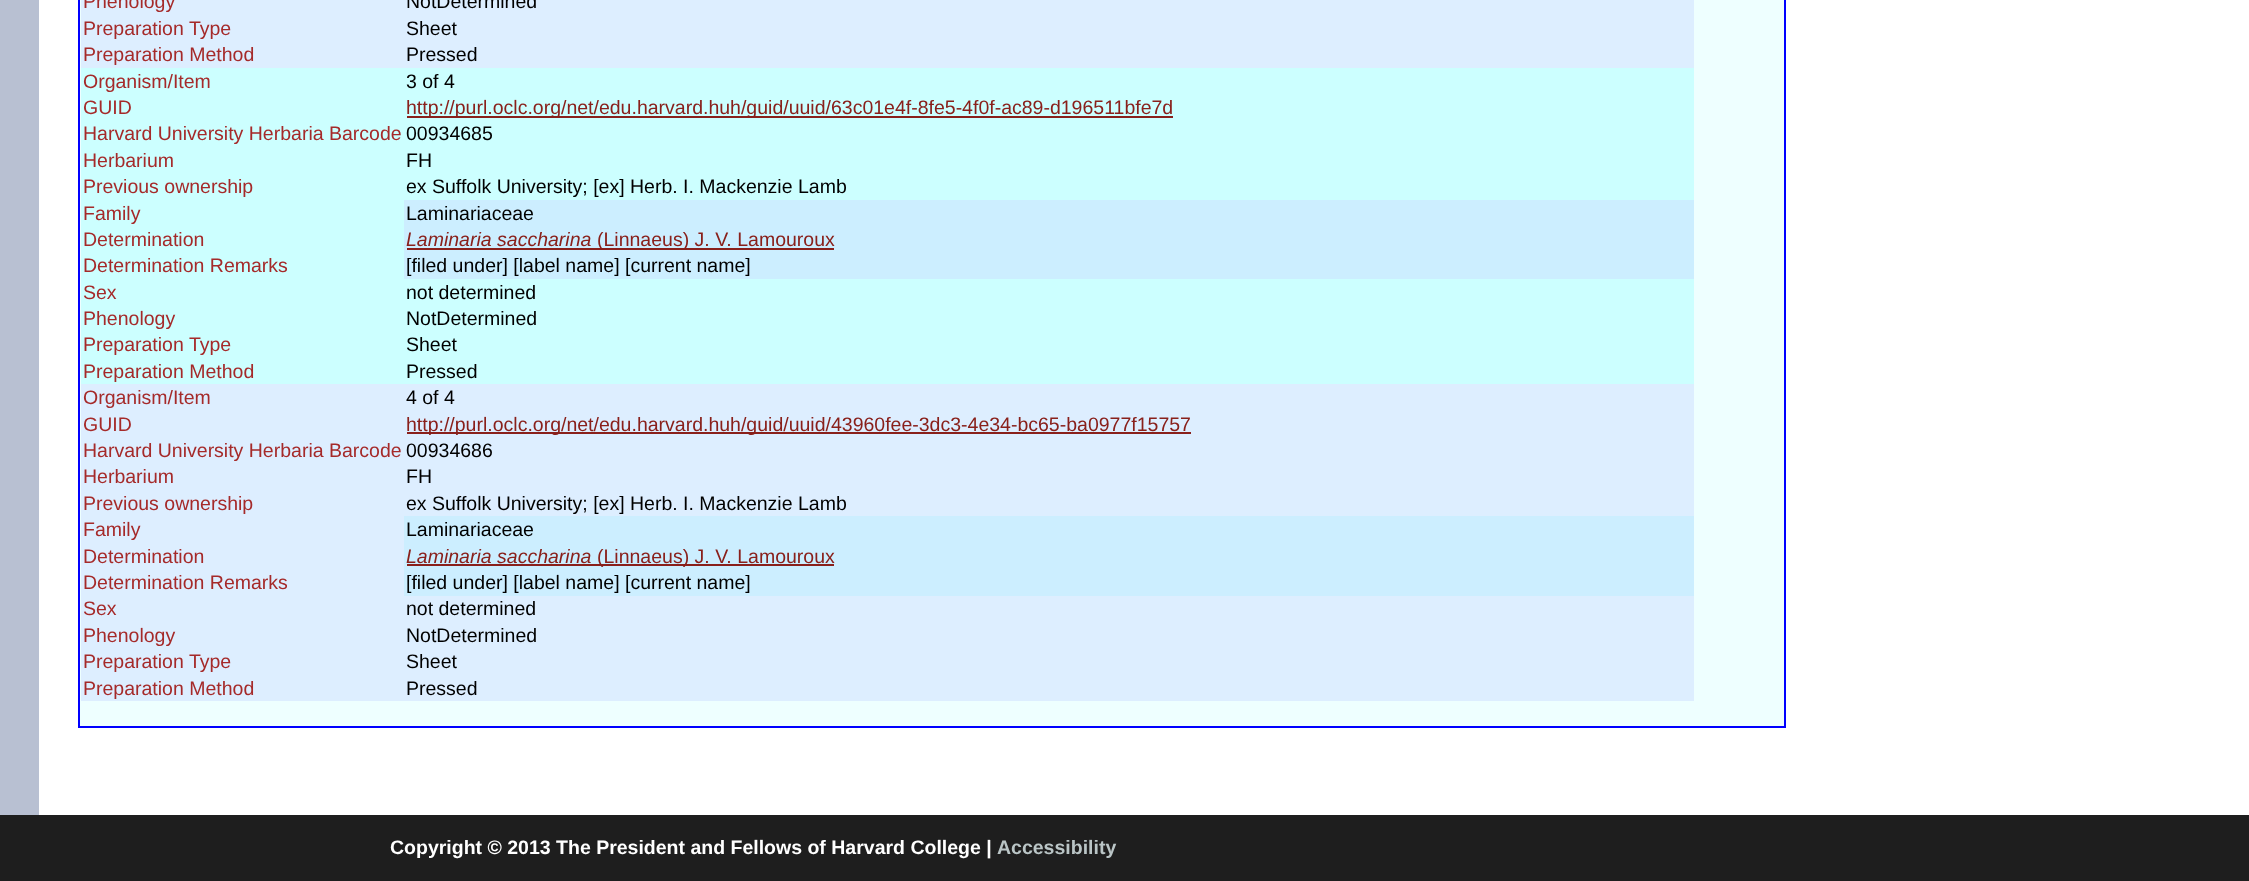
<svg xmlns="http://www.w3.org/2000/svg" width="2249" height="881">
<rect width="100%" height="100%" fill="#b8c0d2"/>
<rect x="39" width="2210" height="815" fill="#fff"/>
<rect x="80" width="1704" height="726" fill="#eff"/>
<rect x="1784" width="2" height="728" fill="#00f"/>
<rect x="78" y="726" width="1707" height="2" fill="#00f"/>
<rect x="78" width="2" height="728" fill="#00f"/>
<rect x="81" width="1613" height="68" fill="#def"/>
<text x="83" y="8" style="font-family:Liberation Sans;font-size:19.5px;fill:#a52a2a">Phenology</text>
<text x="406" y="8" style="font-family:Liberation Sans;font-size:19.5px;fill:#000">NotDetermined</text>
<text x="83" y="35" style="font-family:Liberation Sans;font-size:19.5px;fill:#a52a2a">Preparation Type</text>
<text x="406" y="35" style="font-family:Liberation Sans;font-size:19.5px;fill:#000">Sheet</text>
<text x="83" y="61" style="font-family:Liberation Sans;font-size:19.5px;fill:#a52a2a">Preparation Method</text>
<text x="406" y="61" style="font-family:Liberation Sans;font-size:19.5px;fill:#000">Pressed</text>
<rect x="81" y="68" width="1613" height="132" fill="#cff"/>
<text x="83" y="88" style="font-family:Liberation Sans;font-size:19.5px;fill:#a52a2a">Organism/Item</text>
<text x="406" y="88" style="font-family:Liberation Sans;font-size:19.5px;fill:#000">3 of 4</text>
<text x="83" y="114" style="font-family:Liberation Sans;font-size:19.5px;fill:#a52a2a">GUID</text>
<rect x="407" y="116" width="766" height="2" fill="#89201b"/>
<text x="406" y="114" style="font-family:Liberation Sans;font-size:19.5px;fill:#89201b">http://purl.oclc.org/net/edu.harvard.huh/guid/uuid/63c01e4f-8fe5-4f0f-ac89-d196511bfe7d</text>
<text x="83" y="140" style="font-family:Liberation Sans;font-size:19.5px;fill:#a52a2a">Harvard University Herbaria Barcode</text>
<text x="406" y="140" style="font-family:Liberation Sans;font-size:19.5px;fill:#000">00934685</text>
<text x="83" y="167" style="font-family:Liberation Sans;font-size:19.5px;fill:#a52a2a">Herbarium</text>
<text x="406" y="167" style="font-family:Liberation Sans;font-size:19.5px;fill:#000">FH</text>
<text x="83" y="193" style="font-family:Liberation Sans;font-size:19.5px;fill:#a52a2a">Previous ownership</text>
<text x="406" y="193" style="font-family:Liberation Sans;font-size:19.5px;fill:#000">ex Suffolk University; [ex] Herb. I. Mackenzie Lamb</text>
<rect x="81" y="200" width="323" height="79" fill="#cff"/>
<text x="83" y="220" style="font-family:Liberation Sans;font-size:19.5px;fill:#a52a2a">Family</text>
<rect x="404" y="200" width="1290" height="79" fill="#cef"/>
<text x="406" y="220" style="font-family:Liberation Sans;font-size:19.5px;fill:#000">Laminariaceae</text>
<text x="83" y="246" style="font-family:Liberation Sans;font-size:19.5px;fill:#a52a2a">Determination</text>
<text x="406" y="246" style="font-family:Liberation Sans;font-size:19.5px;font-style:italic;fill:#89201b">Laminaria saccharina</text>
<rect x="407" y="248" width="427" height="2" fill="#89201b"/>
<text x="597" y="246" style="font-family:Liberation Sans;font-size:19.5px;fill:#89201b">(Linnaeus) J. V. Lamouroux</text>
<text x="83" y="272" style="font-family:Liberation Sans;font-size:19.5px;fill:#a52a2a">Determination Remarks</text>
<text x="406" y="272" style="font-family:Liberation Sans;font-size:19.5px;fill:#000">[filed under] [label name] [current name]</text>
<rect x="81" y="279" width="1613" height="105" fill="#cff"/>
<text x="83" y="299" style="font-family:Liberation Sans;font-size:19.5px;fill:#a52a2a">Sex</text>
<text x="406" y="299" style="font-family:Liberation Sans;font-size:19.5px;fill:#000">not determined</text>
<text x="83" y="325" style="font-family:Liberation Sans;font-size:19.5px;fill:#a52a2a">Phenology</text>
<text x="406" y="325" style="font-family:Liberation Sans;font-size:19.5px;fill:#000">NotDetermined</text>
<text x="83" y="351" style="font-family:Liberation Sans;font-size:19.5px;fill:#a52a2a">Preparation Type</text>
<text x="406" y="351" style="font-family:Liberation Sans;font-size:19.5px;fill:#000">Sheet</text>
<text x="83" y="378" style="font-family:Liberation Sans;font-size:19.5px;fill:#a52a2a">Preparation Method</text>
<text x="406" y="378" style="font-family:Liberation Sans;font-size:19.5px;fill:#000">Pressed</text>
<rect x="81" y="384" width="1613" height="132" fill="#def"/>
<text x="83" y="404" style="font-family:Liberation Sans;font-size:19.5px;fill:#a52a2a">Organism/Item</text>
<text x="406" y="404" style="font-family:Liberation Sans;font-size:19.5px;fill:#000">4 of 4</text>
<text x="83" y="431" style="font-family:Liberation Sans;font-size:19.5px;fill:#a52a2a">GUID</text>
<rect x="407" y="432" width="784" height="2" fill="#89201b"/>
<text x="406" y="431" style="font-family:Liberation Sans;font-size:19.5px;fill:#89201b">http://purl.oclc.org/net/edu.harvard.huh/guid/uuid/43960fee-3dc3-4e34-bc65-ba0977f15757</text>
<text x="83" y="457" style="font-family:Liberation Sans;font-size:19.5px;fill:#a52a2a">Harvard University Herbaria Barcode</text>
<text x="406" y="457" style="font-family:Liberation Sans;font-size:19.5px;fill:#000">00934686</text>
<text x="83" y="483" style="font-family:Liberation Sans;font-size:19.5px;fill:#a52a2a">Herbarium</text>
<text x="406" y="483" style="font-family:Liberation Sans;font-size:19.5px;fill:#000">FH</text>
<text x="83" y="510" style="font-family:Liberation Sans;font-size:19.5px;fill:#a52a2a">Previous ownership</text>
<text x="406" y="510" style="font-family:Liberation Sans;font-size:19.5px;fill:#000">ex Suffolk University; [ex] Herb. I. Mackenzie Lamb</text>
<rect x="81" y="516" width="323" height="80" fill="#def"/>
<text x="83" y="536" style="font-family:Liberation Sans;font-size:19.5px;fill:#a52a2a">Family</text>
<rect x="404" y="516" width="1290" height="80" fill="#cef"/>
<text x="406" y="536" style="font-family:Liberation Sans;font-size:19.5px;fill:#000">Laminariaceae</text>
<text x="83" y="563" style="font-family:Liberation Sans;font-size:19.5px;fill:#a52a2a">Determination</text>
<text x="406" y="563" style="font-family:Liberation Sans;font-size:19.5px;font-style:italic;fill:#89201b">Laminaria saccharina</text>
<rect x="407" y="564" width="427" height="2" fill="#89201b"/>
<text x="597" y="563" style="font-family:Liberation Sans;font-size:19.5px;fill:#89201b">(Linnaeus) J. V. Lamouroux</text>
<text x="83" y="589" style="font-family:Liberation Sans;font-size:19.5px;fill:#a52a2a">Determination Remarks</text>
<text x="406" y="589" style="font-family:Liberation Sans;font-size:19.5px;fill:#000">[filed under] [label name] [current name]</text>
<rect x="81" y="596" width="1613" height="105" fill="#def"/>
<text x="83" y="615" style="font-family:Liberation Sans;font-size:19.5px;fill:#a52a2a">Sex</text>
<text x="406" y="615" style="font-family:Liberation Sans;font-size:19.5px;fill:#000">not determined</text>
<text x="83" y="642" style="font-family:Liberation Sans;font-size:19.5px;fill:#a52a2a">Phenology</text>
<text x="406" y="642" style="font-family:Liberation Sans;font-size:19.5px;fill:#000">NotDetermined</text>
<text x="83" y="668" style="font-family:Liberation Sans;font-size:19.5px;fill:#a52a2a">Preparation Type</text>
<text x="406" y="668" style="font-family:Liberation Sans;font-size:19.5px;fill:#000">Sheet</text>
<text x="83" y="695" style="font-family:Liberation Sans;font-size:19.5px;fill:#a52a2a">Preparation Method</text>
<text x="406" y="695" style="font-family:Liberation Sans;font-size:19.5px;fill:#000">Pressed</text>
<rect y="815" width="2249" height="66" fill="#1e1e1e"/>
<text x="390" y="854" style="font-family:Liberation Sans;font-size:19.5px;font-weight:bold;fill:#fff">Copyright © 2013 The President and Fellows of Harvard College |</text>
<text x="997" y="854" style="font-family:Liberation Sans;font-size:19.5px;font-weight:bold;fill:#bac5c6">Accessibility</text>
</svg>
